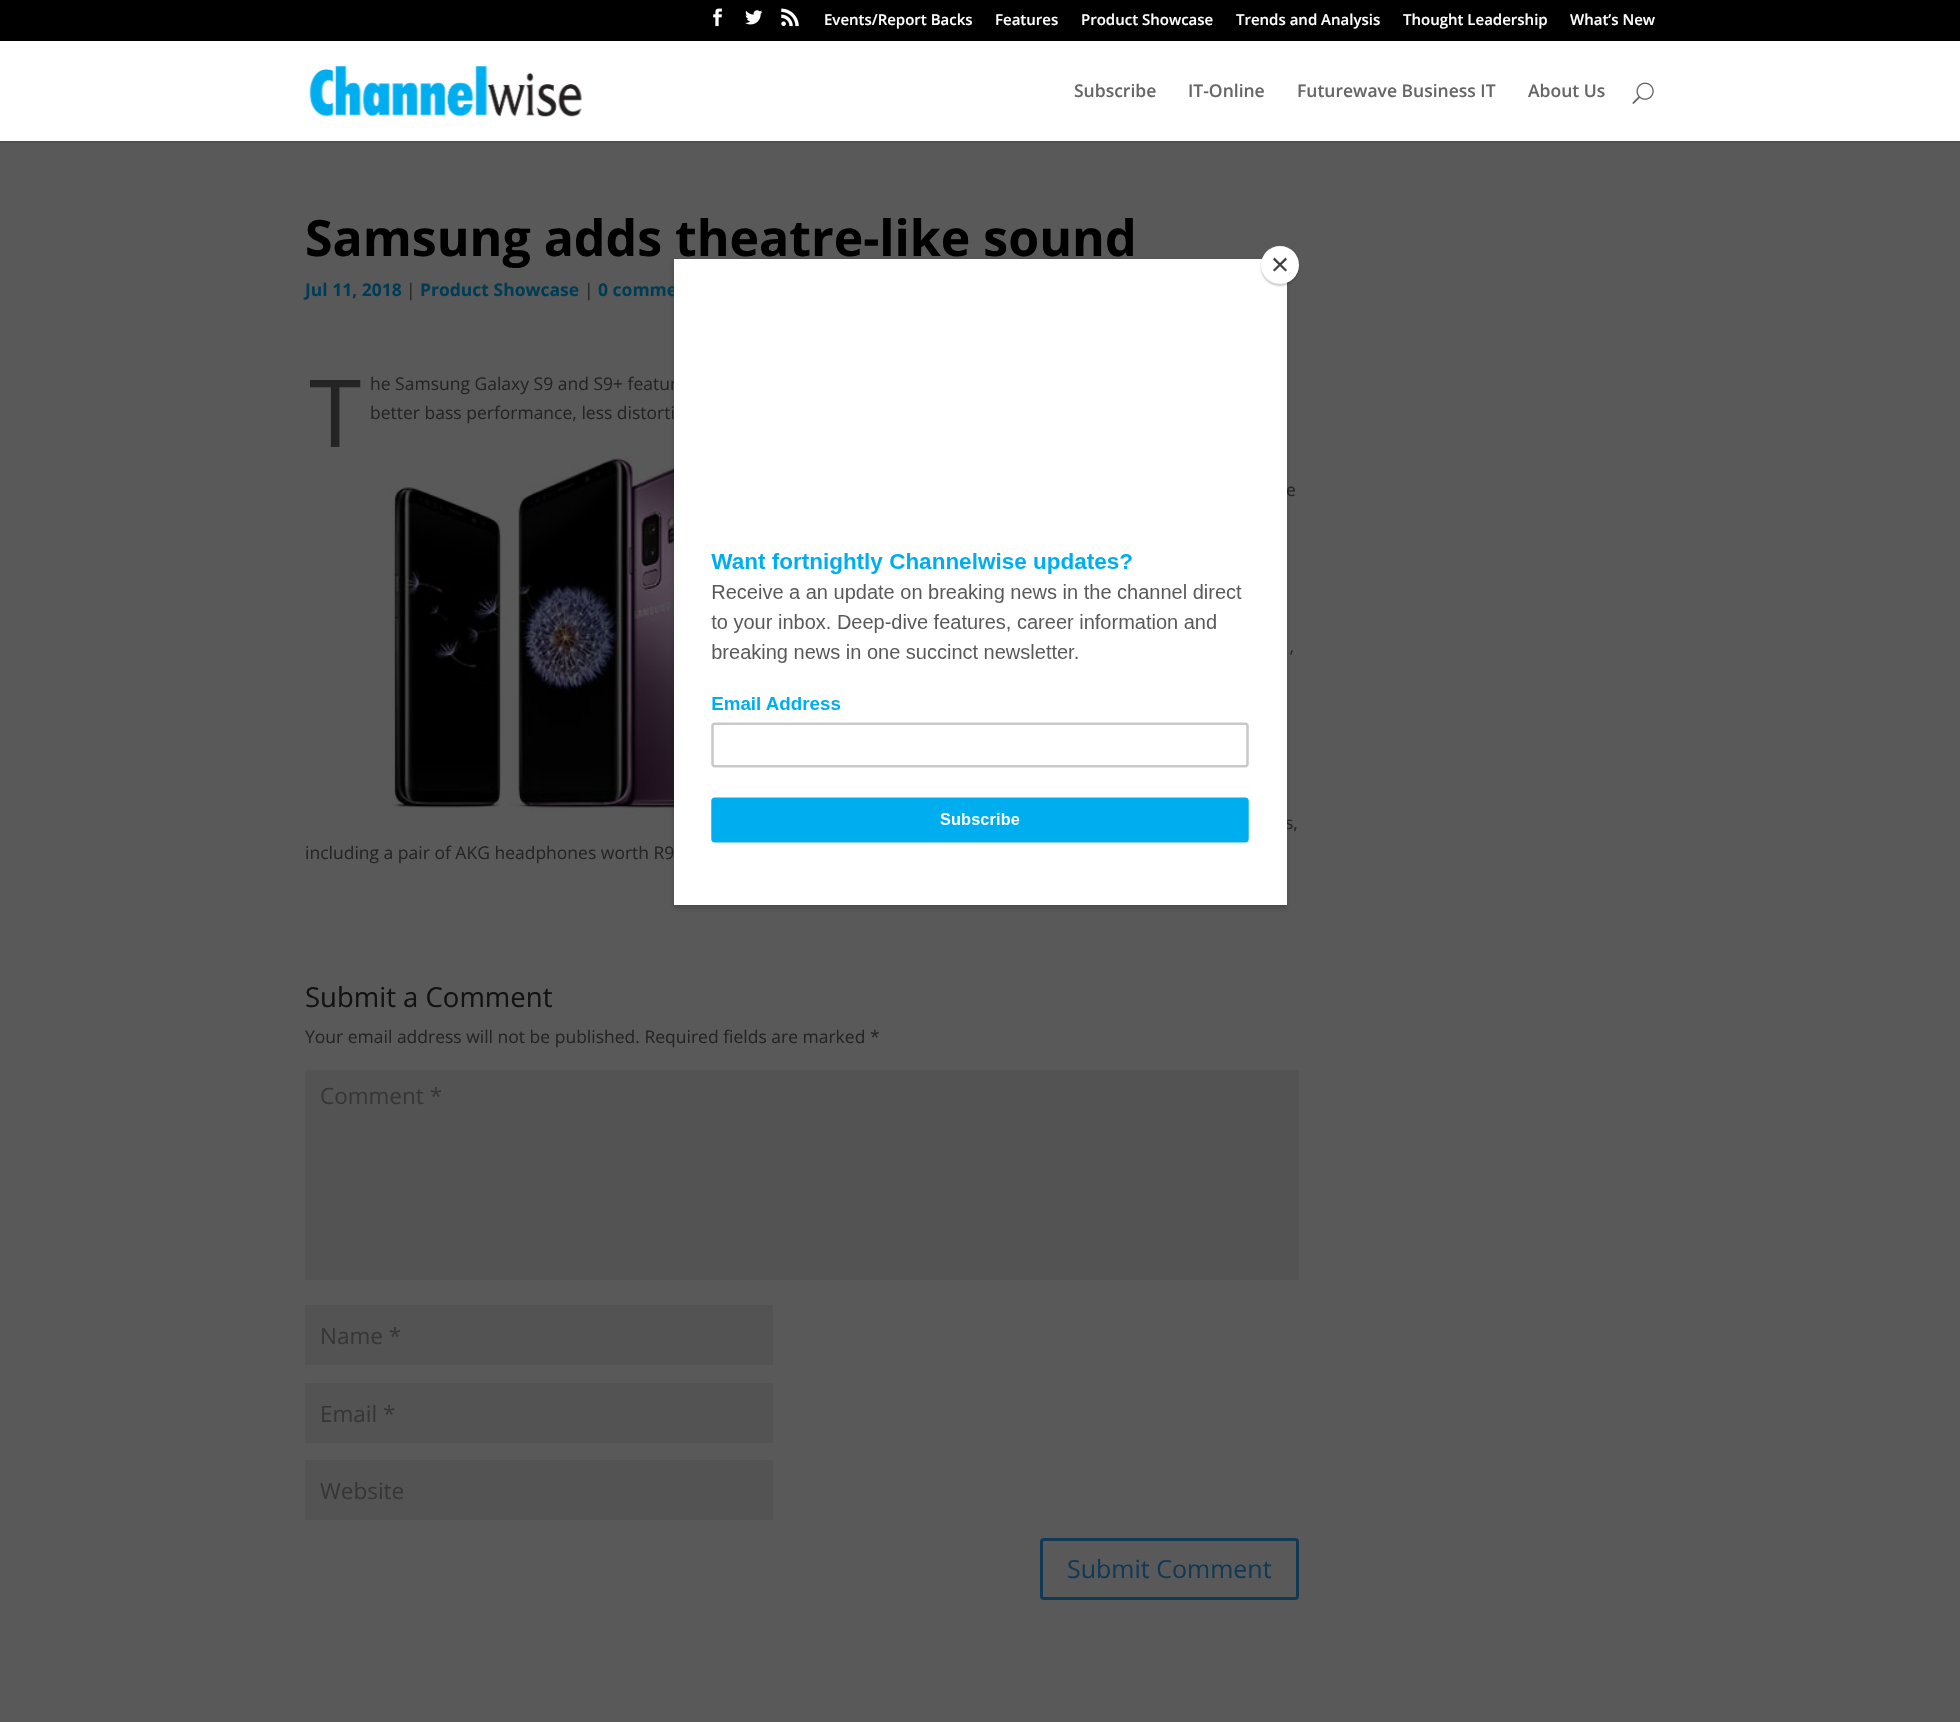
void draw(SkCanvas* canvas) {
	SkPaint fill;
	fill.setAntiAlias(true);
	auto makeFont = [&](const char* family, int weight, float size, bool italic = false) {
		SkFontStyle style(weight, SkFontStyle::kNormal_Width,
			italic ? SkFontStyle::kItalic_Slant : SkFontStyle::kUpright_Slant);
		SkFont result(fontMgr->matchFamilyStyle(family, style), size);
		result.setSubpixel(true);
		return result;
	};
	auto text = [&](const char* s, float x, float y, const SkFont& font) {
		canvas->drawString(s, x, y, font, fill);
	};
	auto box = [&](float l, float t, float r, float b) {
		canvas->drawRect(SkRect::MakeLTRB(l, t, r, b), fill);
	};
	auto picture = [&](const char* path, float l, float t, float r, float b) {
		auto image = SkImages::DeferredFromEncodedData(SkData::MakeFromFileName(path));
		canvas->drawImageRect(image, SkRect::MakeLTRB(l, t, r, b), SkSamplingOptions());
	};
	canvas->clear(0xFF595959);
	fill.setColor(0xFF000000);
	box(0, 0, 1960, 41);
	picture("image0.png", 713, 8, 722, 27);
	picture("image1.png", 745, 10, 763, 25);
	picture("image2.png", 781, 8, 799, 27);
	fill.setColor(0xFF505050);
	box(0, 141, 1960, 143);
	fill.setColor(0xFFFFFFFF);
	box(0, 41, 1960, 141);
	picture("image3.png", 309, 66, 582, 117);
	picture("image4.png", 1632, 82, 1654, 104);
	picture("image5.png", 390, 445, 674, 815);
	fill.setColor(0xFF535353);
	box(305, 1070, 1299, 1280);
	box(305, 1305, 773, 1365);
	box(305, 1383, 773, 1443);
	box(305, 1460, 773, 1520);
	fill.setStyle(SkPaint::kStroke_Style);
	fill.setStrokeWidth(3);
	fill.setColor(0xFF103955);
	canvas->drawRoundRect(SkRect::MakeLTRB(1041.5f, 1539.5f, 1297.5f, 1598.5f), 2.5f, 2.5f, fill);
	fill.setStyle(SkPaint::kFill_Style);
	fill.setColor(0x33000000);
	fill.setMaskFilter(SkMaskFilter::MakeBlur(kNormal_SkBlurStyle, 2.5f));
	canvas->drawRect(SkRect::MakeLTRB(674, 261, 1286, 908), fill);
	fill.setMaskFilter(nullptr);
	auto font1 = makeFont("Open Sans", 600, 15);
	fill.setColor(0xFFFFFFFF);
	text("Events/Report Backs", 824, 25, font1);
	text("Features", 995, 25, font1);
	text("Product Showcase", 1081, 25, font1);
	text("Trends and Analysis", 1236, 25, font1);
	text("Thought Leadership", 1403, 25, font1);
	text("What’s New", 1570, 25, font1);
	auto font2 = makeFont("Open Sans", 600, 17.5f);
	fill.setColor(0xFF666666);
	text("Subscribe", 1074, 97, font2);
	text("IT-Online", 1188, 97, font2);
	text("Futurewave Business IT", 1297, 97, font2);
	text("About Us", 1528, 97, font2);
	auto font3 = makeFont("Open Sans", 700, 50);
	fill.setColor(0xFF000000);
	text("Samsung adds theatre-like sound", 305, 256, font3);
	auto font4 = makeFont("Open Sans", 700, 17.5f);
	fill.setColor(0xFF003D54);
	text("Jul 11, 2018", 305, 296, font4);
	auto font5 = makeFont("Open Sans", 400, 17.5f);
	fill.setColor(0xFF242424);
	text("|", 406, 296, font5);
	fill.setColor(0xFF003D54);
	text("Product Showcase", 420, 296, font4);
	fill.setColor(0xFF242424);
	text("|", 584, 296, font5);
	fill.setColor(0xFF003D54);
	text("0 comme", 598, 296, font4);
	auto font6 = makeFont("Noto Sans", 400, 94);
	fill.setColor(0xFF242424);
	text("T", 309, 447, font6);
	text("he Samsung Galaxy S9 and S9+ featur", 370, 390, font5);
	text("better bass performance, less distorti", 370, 419, font5);
	text("e", 1286, 496, font5);
	text("’", 1290, 663, font5);
	text("s,", 1285, 829, font5);
	text("including a pair of AKG headphones worth R9", 305, 859, font5);
	auto font7 = makeFont("Open Sans", 400, 27.5f);
	fill.setColor(0xFF121212);
	text("Submit a Comment", 305, 1007, font7);
	fill.setColor(0xFF242424);
	text("Your email address will not be published. Required fields are marked *", 305, 1043, font5);
	auto font8 = makeFont("Open Sans", 400, 22.5f);
	fill.setColor(0xFF363636);
	text("Comment *", 320, 1104, font8);
	text("Name *", 320, 1344, font8);
	text("Email *", 320, 1422, font8);
	text("Website", 320, 1499, font8);
	auto font9 = makeFont("Open Sans", 400, 25);
	fill.setColor(0xFF103955);
	text("Submit Comment", 1067, 1578, font9);
	picture("image6.png", 674, 259, 1287, 905);
	fill.setColor(0x33000000);
	fill.setMaskFilter(SkMaskFilter::MakeBlur(kNormal_SkBlurStyle, 1));
	canvas->drawRoundRect(SkRect::MakeLTRB(1261, 249, 1299, 286), 18.5f, 18.5f, fill);
	fill.setMaskFilter(nullptr);
	fill.setColor(0xFFFFFFFF);
	canvas->drawCircle(1280, 265, 19, fill);
	fill.setColor(0xFF414141);
	canvas->drawPath(SkPathBuilder().moveTo(1285.5f, 257.5f).lineTo(1287, 259.5f).lineTo(1274.5f, 271.5f).lineTo(1273, 270).close().detach(), fill);
	canvas->drawPath(SkPathBuilder().moveTo(1273, 259.5f).lineTo(1274.5f, 257.5f).lineTo(1287, 270).lineTo(1285.5f, 271.5f).close().detach(), fill);
}
